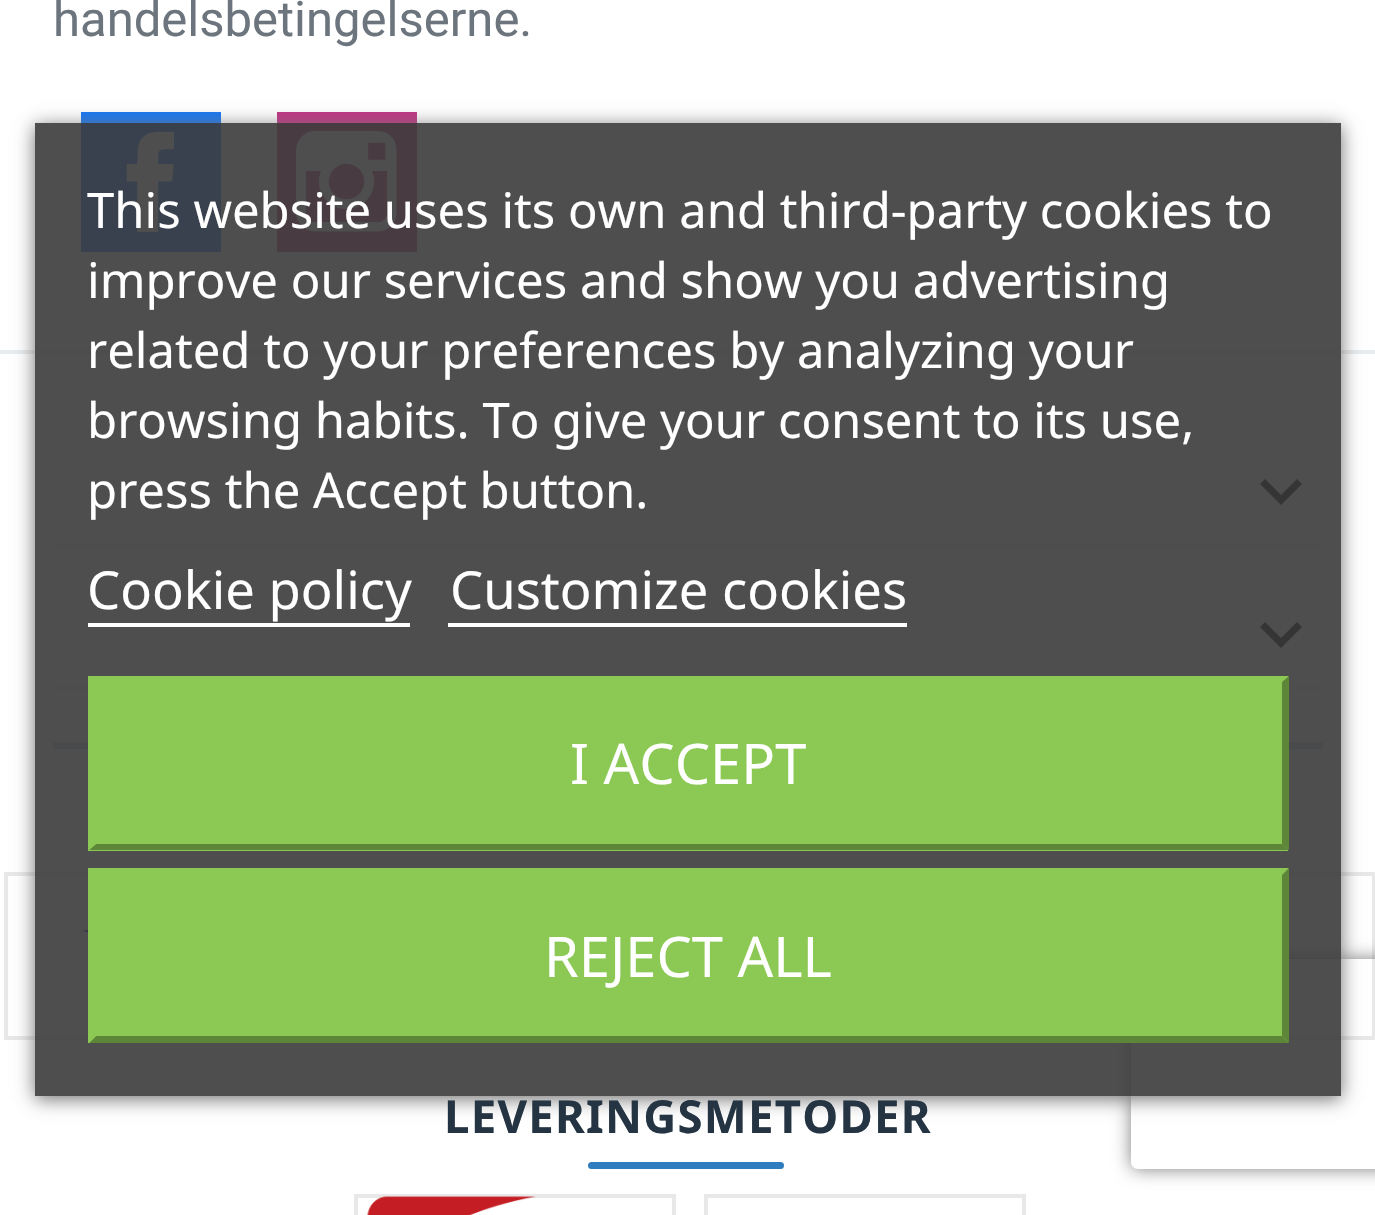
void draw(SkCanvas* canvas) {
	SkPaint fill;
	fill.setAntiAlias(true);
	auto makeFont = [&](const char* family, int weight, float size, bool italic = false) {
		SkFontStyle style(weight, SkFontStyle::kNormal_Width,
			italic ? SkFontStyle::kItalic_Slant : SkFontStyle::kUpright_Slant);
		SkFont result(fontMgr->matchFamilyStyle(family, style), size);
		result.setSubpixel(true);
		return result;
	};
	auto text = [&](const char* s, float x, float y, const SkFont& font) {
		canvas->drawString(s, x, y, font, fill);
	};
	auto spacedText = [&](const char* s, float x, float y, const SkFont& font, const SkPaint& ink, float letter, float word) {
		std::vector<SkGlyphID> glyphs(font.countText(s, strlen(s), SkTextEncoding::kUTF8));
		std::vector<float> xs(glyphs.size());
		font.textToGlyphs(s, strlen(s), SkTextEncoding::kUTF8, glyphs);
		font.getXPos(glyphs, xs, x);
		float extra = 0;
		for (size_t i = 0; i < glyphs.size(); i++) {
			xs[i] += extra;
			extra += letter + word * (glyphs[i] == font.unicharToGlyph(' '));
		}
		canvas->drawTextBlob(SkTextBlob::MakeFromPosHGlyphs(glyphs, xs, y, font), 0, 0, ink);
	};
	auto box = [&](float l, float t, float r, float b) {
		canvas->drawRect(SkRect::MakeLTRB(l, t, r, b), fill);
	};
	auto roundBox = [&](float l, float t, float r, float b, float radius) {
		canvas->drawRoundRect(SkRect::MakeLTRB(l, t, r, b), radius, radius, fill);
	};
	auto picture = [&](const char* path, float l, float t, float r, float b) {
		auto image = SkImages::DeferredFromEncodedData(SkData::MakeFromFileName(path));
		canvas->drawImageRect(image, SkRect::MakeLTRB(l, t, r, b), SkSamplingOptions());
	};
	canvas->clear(0xFFFFFFFF);
	fill.setColor(0xFF1877F2);
	box(81, 112, 221, 252);
	picture("image0.png", 126, 131, 174, 232);
	fill.setColor(0xFFC13584);
	box(277, 112, 417, 252);
	picture("image1.png", 296, 131, 397, 232);
	fill.setColor(0xFFE9ECEF);
	box(0, 350, 1375, 354);
	fill.setColor(0xFFF1F1F1);
	box(53, 543, 1323, 547);
	fill.setColor(0xFF000000);
	canvas->drawPath(SkPathBuilder().moveTo(1265, 479).lineTo(1281, 495).lineTo(1297, 479).lineTo(1302, 484).lineTo(1281, 505).lineTo(1260, 484).close().detach(), fill);
	fill.setColor(0xFFF1F1F1);
	box(53, 686, 1323, 690);
	fill.setColor(0xFF000000);
	canvas->drawPath(SkPathBuilder().moveTo(1265, 622).lineTo(1281, 638).lineTo(1297, 622).lineTo(1302, 627).lineTo(1281, 648).lineTo(1260, 627).close().detach(), fill);
	fill.setColor(0xFFC7D0D9);
	box(53, 742, 1323, 749);
	fill.setStyle(SkPaint::kStroke_Style);
	fill.setStrokeWidth(4);
	fill.setColor(0xFFE8E8E8);
	canvas->drawRect(SkRect::MakeLTRB(6, 874, 324, 1038), fill);
	picture("image2.png", 84, 930, 88, 933);
	canvas->drawRect(SkRect::MakeLTRB(1056, 874, 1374, 1038), fill);
	canvas->save();
	canvas->clipPath(SkPathBuilder(SkPathFillType::kEvenOdd).moveTo(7, 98).lineTo(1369, 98).lineTo(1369, 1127).lineTo(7, 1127).close().moveTo(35, 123).lineTo(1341, 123).lineTo(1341, 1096).lineTo(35, 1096).close().detach(), true);
	fill.setStyle(SkPaint::kFill_Style);
	fill.setColor(0xFF707070);
	fill.setMaskFilter(SkMaskFilter::MakeBlur(kNormal_SkBlurStyle, 9));
	canvas->drawRect(SkRect::MakeLTRB(35, 126, 1341, 1099), fill);
	fill.setMaskFilter(nullptr);
	canvas->restore();
	canvas->save();
	canvas->clipPath(SkPathBuilder(SkPathFillType::kEvenOdd).moveTo(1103, 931).lineTo(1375, 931).lineTo(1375, 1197).lineTo(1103, 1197).close().moveTo(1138, 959).lineTo(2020, 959).cubicTo(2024, 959, 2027, 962, 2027, 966).lineTo(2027, 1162).cubicTo(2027, 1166, 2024, 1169, 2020, 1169).lineTo(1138, 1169).cubicTo(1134, 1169, 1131, 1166, 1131, 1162).lineTo(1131, 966).cubicTo(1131, 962, 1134, 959, 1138, 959).close().detach(), true);
	fill.setColor(0xFF808080);
	fill.setMaskFilter(SkMaskFilter::MakeBlur(kNormal_SkBlurStyle, 9));
	canvas->drawRoundRect(SkRect::MakeLTRB(1131, 959, 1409, 1169), 7, 7, fill);
	fill.setMaskFilter(nullptr);
	canvas->restore();
	fill.setColor(0xE63B3B3B);
	box(35, 123, 1341, 1096);
	fill.setColor(0xFFFFFFFF);
	box(88, 623, 410, 627);
	box(448, 623, 907, 627);
	fill.setColor(0xFF8BC954);
	box(88, 676, 1288, 851);
	canvas->drawPath(SkPathBuilder().moveTo(89, 676).lineTo(1289, 676).lineTo(1282, 682).lineTo(96, 682).close().detach(), fill);
	fill.setColor(0xFF5D8638);
	canvas->drawPath(SkPathBuilder().moveTo(1289, 676).lineTo(1289, 850).lineTo(1282, 844).lineTo(1282, 682).close().detach(), fill);
	canvas->drawPath(SkPathBuilder().moveTo(1289, 850).lineTo(89, 850).lineTo(96, 844).lineTo(1282, 844).close().detach(), fill);
	fill.setColor(0xFF8BC954);
	canvas->drawPath(SkPathBuilder().moveTo(89, 850).lineTo(89, 676).lineTo(96, 682).lineTo(96, 844).close().detach(), fill);
	box(88, 868, 1288, 1043);
	canvas->drawPath(SkPathBuilder().moveTo(89, 868).lineTo(1289, 868).lineTo(1282, 875).lineTo(96, 875).close().detach(), fill);
	fill.setColor(0xFF5D8638);
	canvas->drawPath(SkPathBuilder().moveTo(1289, 868).lineTo(1289, 1043).lineTo(1282, 1036).lineTo(1282, 875).close().detach(), fill);
	canvas->drawPath(SkPathBuilder().moveTo(1289, 1043).lineTo(89, 1043).lineTo(96, 1036).lineTo(1282, 1036).close().detach(), fill);
	fill.setColor(0xFF8BC954);
	canvas->drawPath(SkPathBuilder().moveTo(89, 1043).lineTo(89, 868).lineTo(96, 875).lineTo(96, 1036).close().detach(), fill);
	fill.setColor(0xFF2F7DBF);
	roundBox(588, 1162, 784, 1169, 3.5f);
	fill.setStyle(SkPaint::kStroke_Style);
	fill.setColor(0xFFE8E8E8);
	canvas->drawRect(SkRect::MakeLTRB(356, 1196, 674, 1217), fill);
	picture("image3.png", 367, 1196, 536, 1215);
	canvas->drawRect(SkRect::MakeLTRB(706, 1196, 1024, 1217), fill);
	auto font1 = makeFont("Roboto", 400, 49);
	fill.setStyle(SkPaint::kFill_Style);
	fill.setColor(0xFF6C757D);
	text("handelsbetingelserne.", 53, 36, font1);
	auto font2 = makeFont("Noto Sans", 400, 49);
	fill.setColor(0xFFFFFFFF);
	text("This website uses its own and third-party cookies to", 87, 228, font2);
	text("improve our services and show you advertising", 87, 298, font2);
	text("related to your preferences by analyzing your", 87, 368, font2);
	text("browsing habits. To give your consent to its use,", 87, 438, font2);
	text("press the Accept button.", 87, 508, font2);
	auto font3 = makeFont("Noto Sans", 400, 52.5f);
	text("Cookie policy", 87, 609, font3);
	text("Customize cookies", 450, 609, font3);
	auto font4 = makeFont("Noto Sans", 400, 56);
	text("I ACCEPT", 570, 784, font4);
	text("REJECT ALL", 544, 977, font4);
	auto font5 = makeFont("Noto Sans", 700, 45.5f);
	fill.setColor(0xFF243442);
	spacedText("LEVERINGSMETODER", 444, 1133, font5, fill, 1.25f, 0);
}
